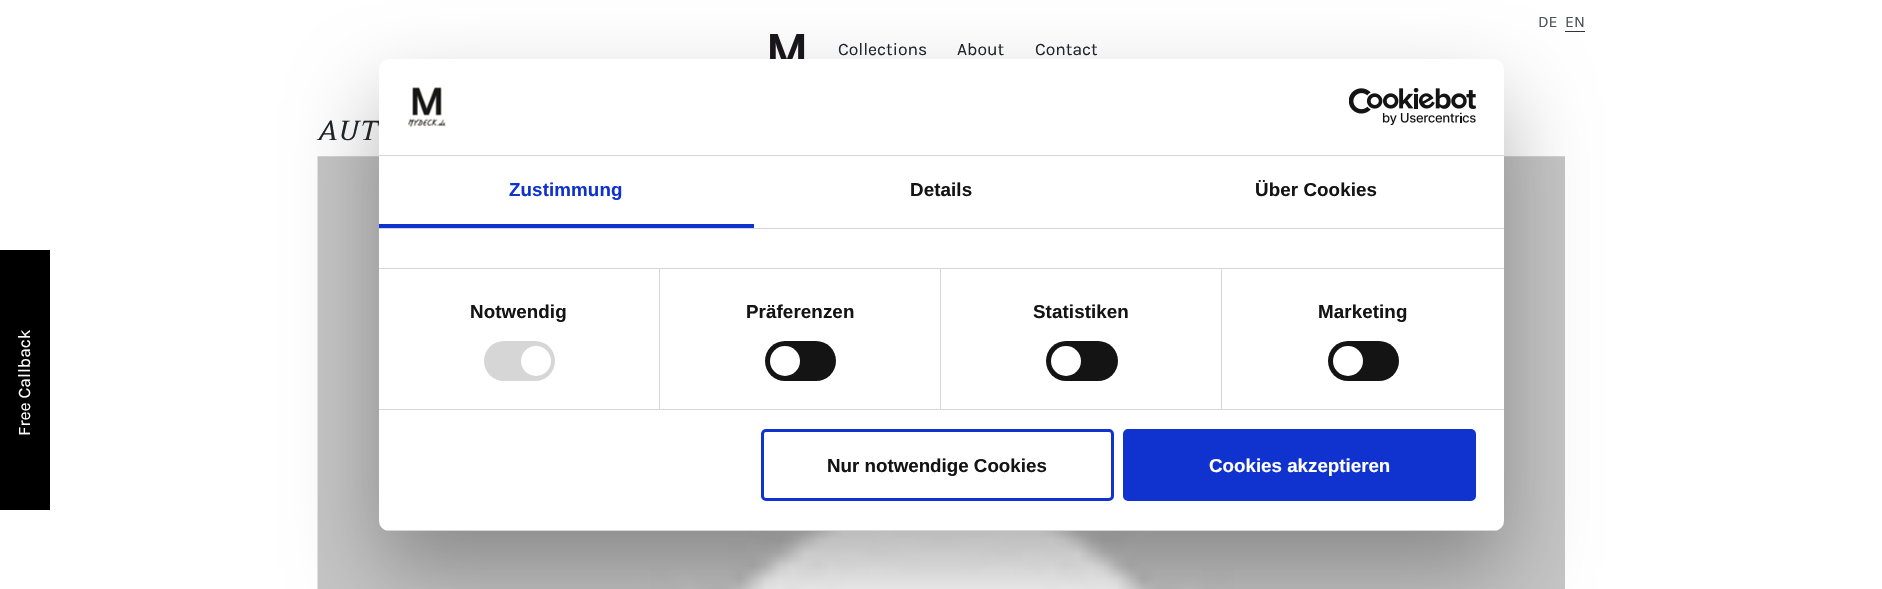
void draw(SkCanvas* canvas) {
	SkPaint fill;
	fill.setAntiAlias(true);
	auto makeFont = [&](const char* family, int weight, float size, bool italic = false) {
		SkFontStyle style(weight, SkFontStyle::kNormal_Width,
			italic ? SkFontStyle::kItalic_Slant : SkFontStyle::kUpright_Slant);
		SkFont result(fontMgr->matchFamilyStyle(family, style), size);
		result.setSubpixel(true);
		return result;
	};
	auto text = [&](const char* s, float x, float y, const SkFont& font) {
		canvas->drawString(s, x, y, font, fill);
	};
	auto spacedText = [&](const char* s, float x, float y, const SkFont& font, const SkPaint& ink, float letter, float word) {
		std::vector<SkGlyphID> glyphs(font.countText(s, strlen(s), SkTextEncoding::kUTF8));
		std::vector<float> xs(glyphs.size());
		font.textToGlyphs(s, strlen(s), SkTextEncoding::kUTF8, glyphs);
		font.getXPos(glyphs, xs, x);
		float extra = 0;
		for (size_t i = 0; i < glyphs.size(); i++) {
			xs[i] += extra;
			extra += letter + word * (glyphs[i] == font.unicharToGlyph(' '));
		}
		canvas->drawTextBlob(SkTextBlob::MakeFromPosHGlyphs(glyphs, xs, y, font), 0, 0, ink);
	};
	auto box = [&](float l, float t, float r, float b) {
		canvas->drawRect(SkRect::MakeLTRB(l, t, r, b), fill);
	};
	auto roundBox = [&](float l, float t, float r, float b, float radius) {
		canvas->drawRoundRect(SkRect::MakeLTRB(l, t, r, b), radius, radius, fill);
	};
	auto picture = [&](const char* path, float l, float t, float r, float b) {
		auto image = SkImages::DeferredFromEncodedData(SkData::MakeFromFileName(path));
		canvas->drawImageRect(image, SkRect::MakeLTRB(l, t, r, b), SkSamplingOptions());
	};
	canvas->clear(0xFFFFFFFF);
	fill.setColor(0xFF333333);
	box(1565, 31, 1585, 32);
	picture("image0.png", 770, 34, 805, 59);
	picture("image1.png", 317, 156, 1565, 589);
	fill.setColor(0xFF000000);
	box(0, 250, 50, 510);
	fill.setColor(0x4D000000);
	fill.setMaskFilter(SkMaskFilter::MakeBlur(kNormal_SkBlurStyle, 42.5f));
	canvas->drawRoundRect(SkRect::MakeLTRB(379, 99, 1504, 571), 10, 10, fill);
	fill.setMaskFilter(nullptr);
	auto font1 = makeFont("Karla", 400, 16);
	fill.setColor(0xFF4D5154);
	text("DE", 1538, 27, font1);
	text("EN", 1565, 27, font1);
	auto font2 = makeFont("Karla", 400, 17.5f);
	fill.setColor(0xFF212529);
	text("Collections", 838, 55, font2);
	text("About", 957, 55, font2);
	text("Contact", 1035, 55, font2);
	auto font3 = makeFont("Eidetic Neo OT", 400, 32, true);
	spacedText("AUT", 318, 140, font3, fill, 1, 0);
	fill.setColor(0xFFFFFFFF);
	canvas->save();
	canvas->rotate(-90, 30, 436);
	text("Free Callback", 30, 436, font2);
	canvas->restore();
	roundBox(379, 59, 1504, 531, 10);
	fill.setColor(0xFFD6D6D6);
	box(379, 155, 1504, 156);
	picture("image2.png", 408, 87, 446, 127);
	picture("image3.png", 1349, 88, 1476, 125);
	box(379, 228, 1504, 229);
	fill.setColor(0xFF1032CF);
	box(379, 224, 754, 228);
	auto font4 = makeFont("Liberation Sans", 700, 18.75f);
	spacedText("Zustimmung", 509, 196, font4, fill, 0.1f, 0);
	fill.setColor(0xFF141414);
	spacedText("Details", 910, 196, font4, fill, 0.1f, 0);
	spacedText("Über Cookies", 1255, 196, font4, fill, 0.1f, 0);
	fill.setColor(0xFFD6D6D6);
	box(379, 268, 1504, 269);
	box(379, 409, 1504, 410);
	box(659, 269, 660, 409);
	fill.setColor(0xFF141414);
	spacedText("Notwendig", 470, 318, font4, fill, 0.1f, 0);
	fill.setColor(0xFFD6D6D6);
	roundBox(484, 341, 555, 381, 20);
	fill.setColor(0xFFFFFFFF);
	canvas->drawCircle(536, 361, 15, fill);
	fill.setColor(0xFFD6D6D6);
	box(940, 269, 941, 409);
	fill.setColor(0xFF141414);
	spacedText("Präferenzen", 746, 318, font4, fill, 0.1f, 0);
	roundBox(765, 341, 836, 381, 20);
	fill.setColor(0xFFFFFFFF);
	canvas->drawCircle(785, 361, 15, fill);
	fill.setColor(0xFFD6D6D6);
	box(1221, 269, 1222, 409);
	fill.setColor(0xFF141414);
	spacedText("Statistiken", 1033, 318, font4, fill, 0.1f, 0);
	roundBox(1046, 341, 1118, 381, 20);
	fill.setColor(0xFFFFFFFF);
	canvas->drawCircle(1066, 361, 15, fill);
	fill.setColor(0xFF141414);
	spacedText("Marketing", 1318, 318, font4, fill, 0.1f, 0);
	roundBox(1328, 341, 1399, 381, 20);
	fill.setColor(0xFFFFFFFF);
	canvas->drawCircle(1348, 361, 15, fill);
	canvas->save();
	canvas->clipPath(SkPathBuilder().moveTo(389, 59).lineTo(1494, 59).cubicTo(1499.5f, 59, 1504, 63.5f, 1504, 69).lineTo(1504, 521).cubicTo(1504, 526.5f, 1499.5f, 531, 1494, 531).lineTo(389, 531).cubicTo(383.5f, 531, 379, 526.5f, 379, 521).lineTo(379, 69).cubicTo(379, 63.5f, 383.5f, 59, 389, 59).close().detach(), true);
	fill.setColor(0xFFD6D6D6);
	box(379, 530, 1504, 531);
	canvas->restore();
	fill.setStyle(SkPaint::kStroke_Style);
	fill.setStrokeWidth(3);
	fill.setColor(0xFF1032CF);
	canvas->drawRoundRect(SkRect::MakeLTRB(762.5f, 430.5f, 1112.5f, 499.5f), 3.5f, 3.5f, fill);
	fill.setStyle(SkPaint::kFill_Style);
	fill.setColor(0xFF141414);
	text("Nur notwendige Cookies", 827, 472, font4);
	fill.setColor(0xFF1032CF);
	canvas->drawRoundRect(SkRect::MakeLTRB(1124.5f, 430.5f, 1474.5f, 499.5f), 3.5f, 3.5f, fill);
	fill.setStyle(SkPaint::kStroke_Style);
	canvas->drawRoundRect(SkRect::MakeLTRB(1124.5f, 430.5f, 1474.5f, 499.5f), 3.5f, 3.5f, fill);
	fill.setStyle(SkPaint::kFill_Style);
	fill.setColor(0xFFFFFFFF);
	text("Cookies akzeptieren", 1209, 472, font4);
}
